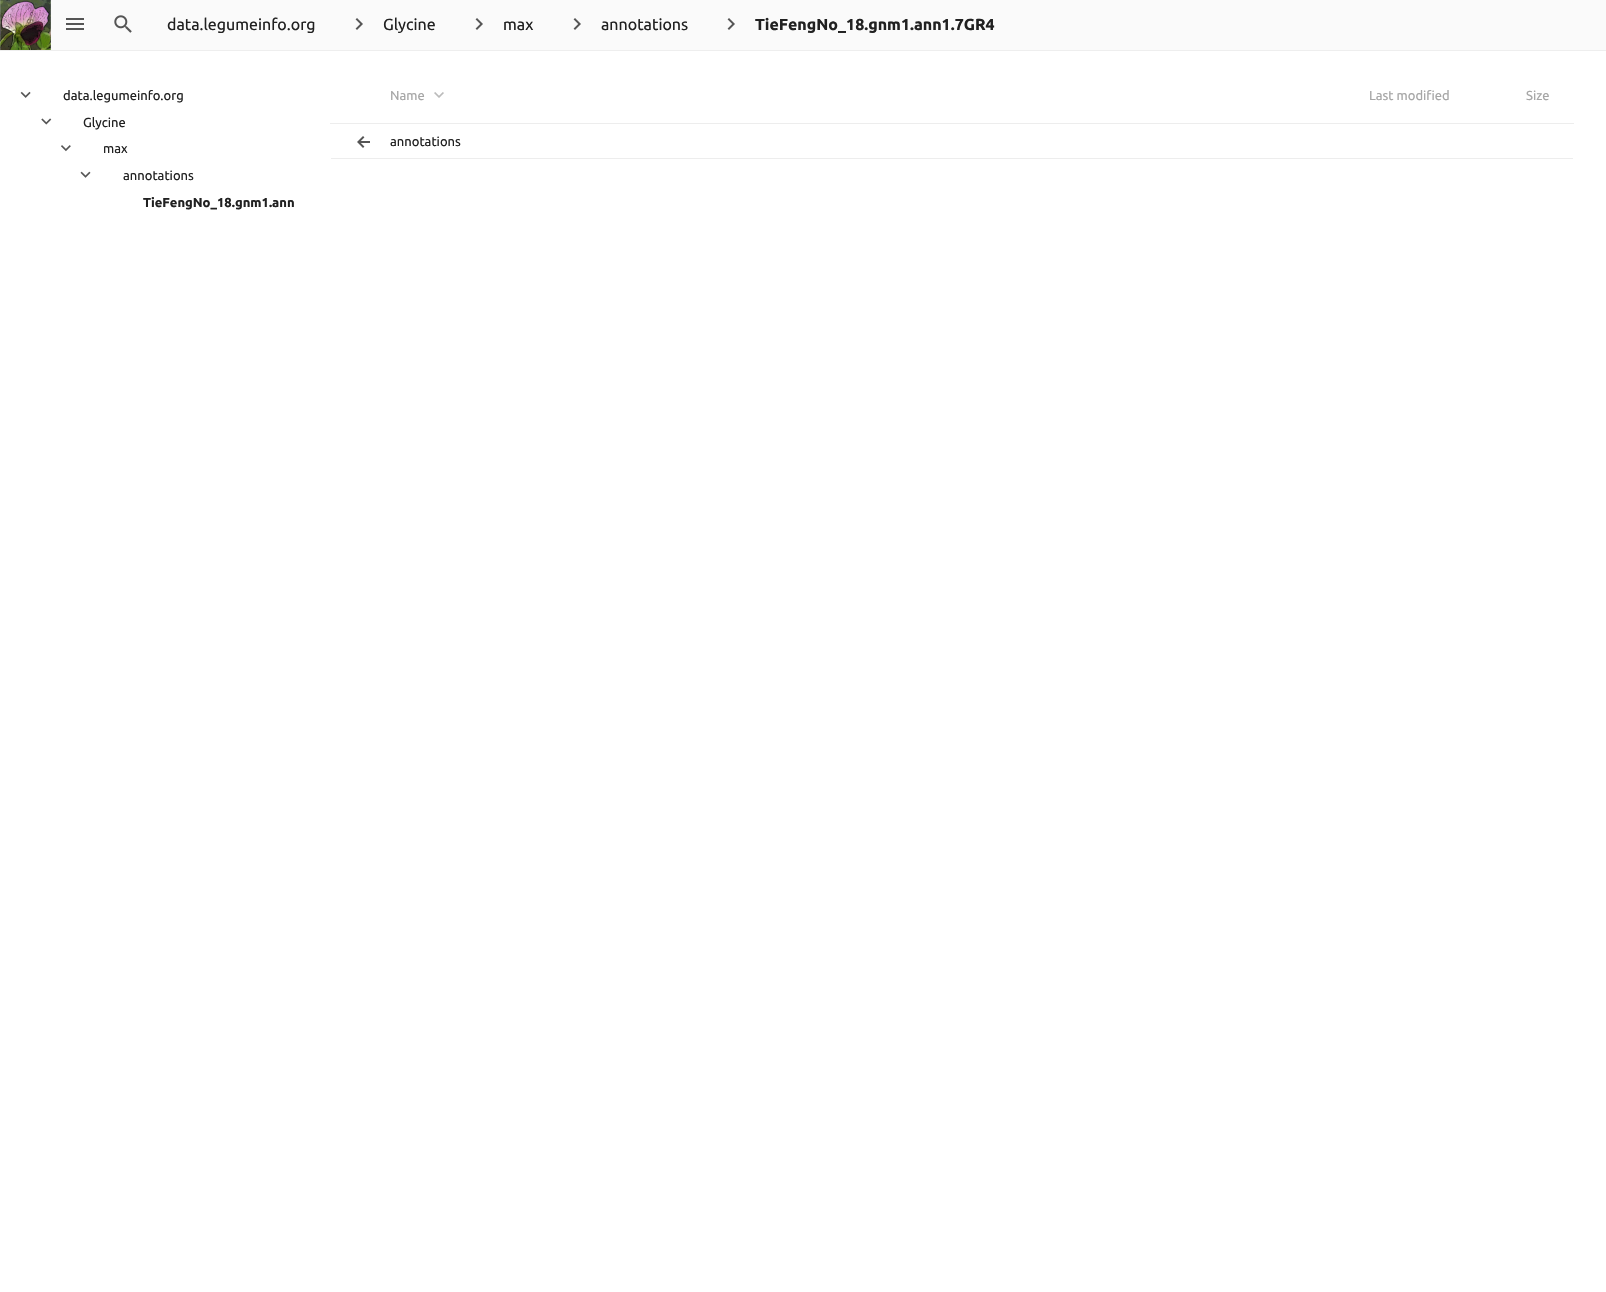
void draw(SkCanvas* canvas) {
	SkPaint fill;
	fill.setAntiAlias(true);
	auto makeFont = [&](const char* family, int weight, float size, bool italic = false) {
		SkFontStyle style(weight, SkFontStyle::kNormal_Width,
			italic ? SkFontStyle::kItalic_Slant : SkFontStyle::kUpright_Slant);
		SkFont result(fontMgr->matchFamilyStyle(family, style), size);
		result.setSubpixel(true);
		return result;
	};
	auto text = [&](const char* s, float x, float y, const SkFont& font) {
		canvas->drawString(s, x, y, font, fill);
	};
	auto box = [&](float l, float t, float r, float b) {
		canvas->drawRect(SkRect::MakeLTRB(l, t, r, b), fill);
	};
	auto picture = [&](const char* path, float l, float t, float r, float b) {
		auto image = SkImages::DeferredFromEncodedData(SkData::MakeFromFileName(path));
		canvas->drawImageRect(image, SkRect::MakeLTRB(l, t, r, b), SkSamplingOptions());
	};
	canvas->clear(0xFFFFFFFF);
	fill.setColor(0xFFFAFAFA);
	box(51, 0, 1606, 50);
	fill.setColor(0xFFEEEEEE);
	box(0, 50, 1606, 51);
	picture("image0.png", 0, 0, 51, 50);
	picture("image1.png", 66, 18, 84, 30);
	picture("image2.png", 114, 15, 132, 33);
	picture("image3.png", 355, 18, 363, 30);
	picture("image3.png", 475, 18, 483, 30);
	picture("image3.png", 573, 18, 581, 30);
	picture("image3.png", 727, 18, 735, 30);
	picture("image4.png", 20, 91, 31, 98);
	picture("image5.png", 41, 118, 52, 125);
	picture("image6.png", 61, 145, 71, 152);
	picture("image7.png", 80, 171, 91, 178);
	fill.setColor(0xFFEDEDED);
	box(330, 123, 1574, 124);
	picture("image8.png", 434, 92, 444, 98);
	box(331, 158, 1573, 159);
	picture("image9.png", 357, 136, 370, 148);
	auto font1 = makeFont("Ubuntu", 400, 16);
	fill.setColor(0xFF212121);
	text("data.legumeinfo.org", 167, 30, font1);
	text("Glycine", 383, 30, font1);
	text("max", 503, 30, font1);
	text("annotations", 601, 30, font1);
	auto font2 = makeFont("Ubuntu", 700, 16);
	text("TieFengNo_18.gnm1.ann1.7GR4", 755, 30, font2);
	auto font3 = makeFont("Ubuntu", 400, 13);
	text("data.legumeinfo.org", 63, 100, font3);
	text("Glycine", 83, 127, font3);
	text("max", 103, 153, font3);
	text("annotations", 123, 180, font3);
	auto font4 = makeFont("Ubuntu", 700, 13);
	text("TieFengNo_18.gnm1.ann", 143, 207, font4);
	fill.setColor(0xFFA6A6A6);
	text("Name", 390, 100, font3);
	text("Last modified", 1369, 100, font3);
	text("Size", 1526, 100, font3);
	fill.setColor(0xFF212121);
	text("annotations", 390, 146, font3);
}
